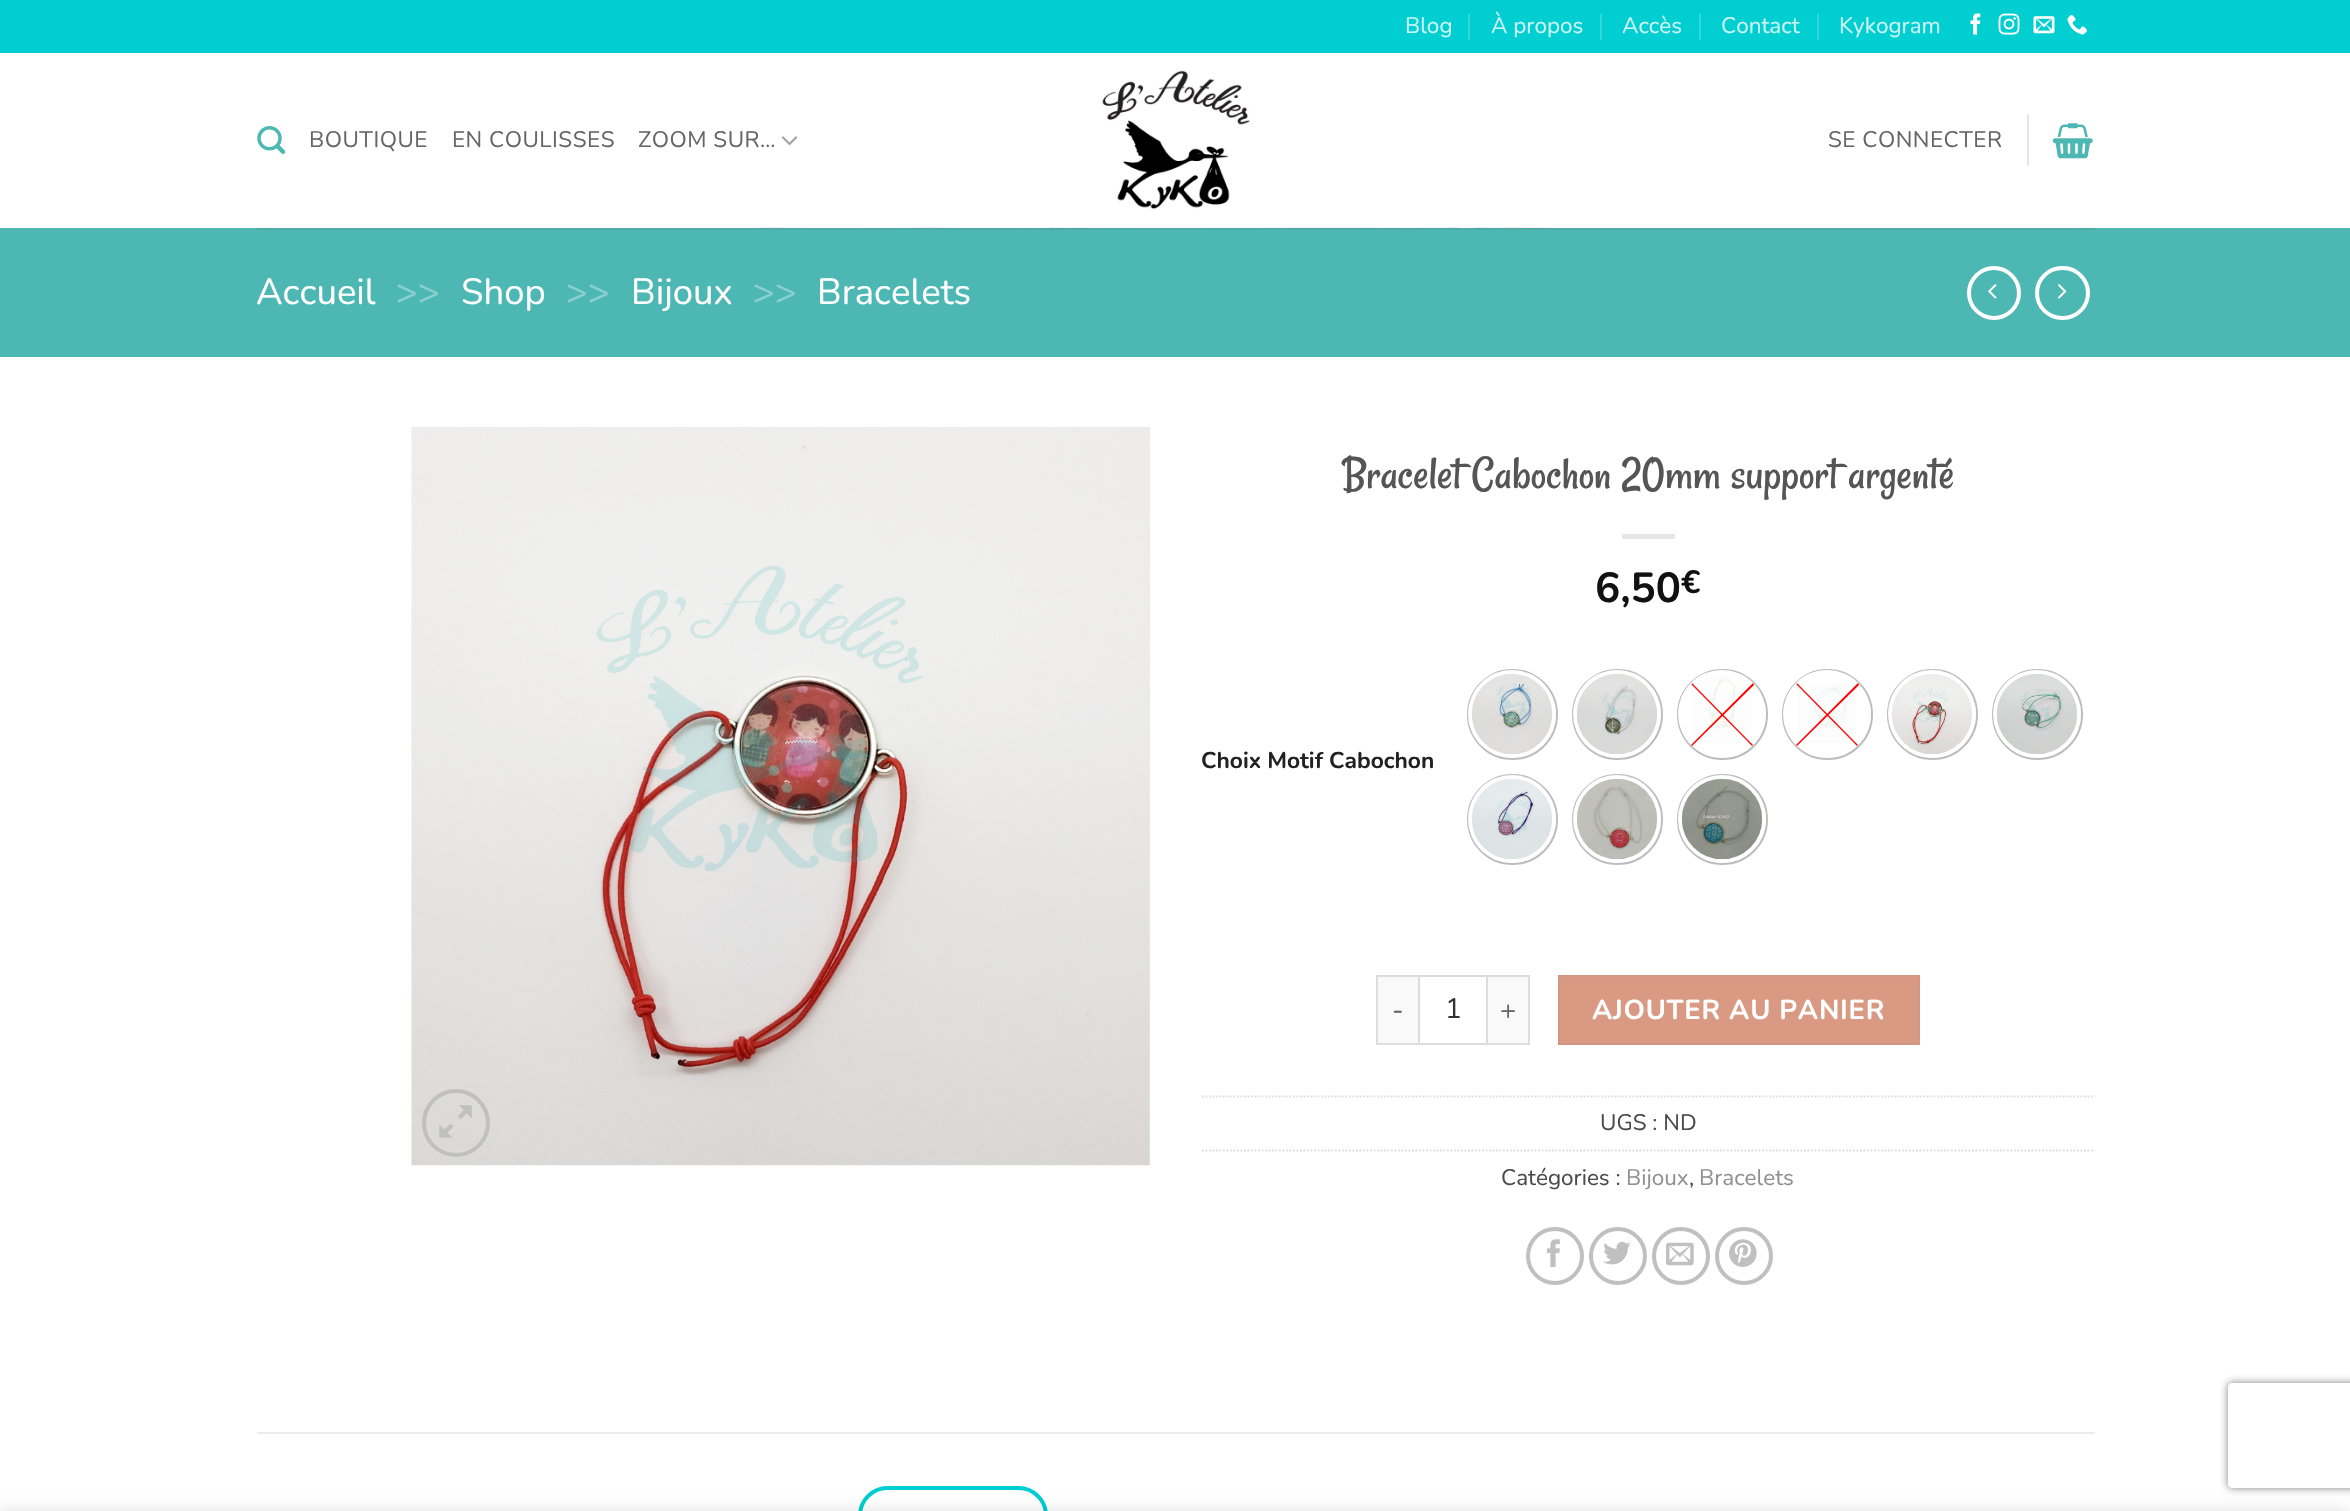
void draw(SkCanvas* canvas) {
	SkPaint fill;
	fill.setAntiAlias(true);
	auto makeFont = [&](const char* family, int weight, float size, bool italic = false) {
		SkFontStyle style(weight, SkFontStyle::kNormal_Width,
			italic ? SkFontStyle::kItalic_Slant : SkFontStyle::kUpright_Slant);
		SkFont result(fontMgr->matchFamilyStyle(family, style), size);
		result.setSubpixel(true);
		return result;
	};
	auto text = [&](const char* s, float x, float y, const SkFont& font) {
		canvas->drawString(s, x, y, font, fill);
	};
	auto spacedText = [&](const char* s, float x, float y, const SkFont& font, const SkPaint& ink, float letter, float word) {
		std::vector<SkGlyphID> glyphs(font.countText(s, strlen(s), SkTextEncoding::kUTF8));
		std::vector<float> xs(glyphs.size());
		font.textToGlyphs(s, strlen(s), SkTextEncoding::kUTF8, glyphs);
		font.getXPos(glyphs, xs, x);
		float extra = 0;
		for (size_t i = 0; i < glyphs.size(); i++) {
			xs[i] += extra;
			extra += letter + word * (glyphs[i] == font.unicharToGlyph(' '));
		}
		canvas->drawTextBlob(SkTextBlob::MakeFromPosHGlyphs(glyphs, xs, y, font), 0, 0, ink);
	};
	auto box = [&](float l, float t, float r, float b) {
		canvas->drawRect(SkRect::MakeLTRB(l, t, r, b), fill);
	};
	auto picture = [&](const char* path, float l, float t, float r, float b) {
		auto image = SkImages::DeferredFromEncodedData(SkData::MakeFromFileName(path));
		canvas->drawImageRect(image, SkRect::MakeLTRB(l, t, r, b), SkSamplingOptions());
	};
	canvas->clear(0xFFFFFFFF);
	fill.setColor(0xFF00CED1);
	box(0, 0, 2350, 53);
	fill.setColor(0xFF33D8DA);
	box(1468, 14, 1470, 40);
	box(1600, 14, 1602, 40);
	box(1699, 14, 1701, 40);
	box(1817, 14, 1819, 40);
	picture("image0.png", 1970, 13, 1981, 35);
	picture("image1.png", 1998, 13, 2020, 35);
	picture("image2.png", 2033, 16, 2055, 34);
	picture("image3.png", 2067, 14, 2088, 35);
	picture("image4.png", 257, 126, 286, 154);
	picture("image5.png", 781, 136, 798, 146);
	picture("image8.png", 0, 227, 2350, 228);
	fill.setColor(0xE6FFFFFF);
	box(0, 227, 2350, 228);
	picture("image6.png", 1088, 70, 1263, 228);
	fill.setColor(0xFFE6E6E6);
	box(2027, 114, 2029, 166);
	picture("image7.png", 2052, 123, 2093, 159);
	fill.setColor(0xFF4DB7B3);
	box(0, 228, 2350, 357);
	fill.setColor(0xFF4DACA8);
	box(257, 228, 2095, 230);
	fill.setStyle(SkPaint::kStroke_Style);
	fill.setStrokeWidth(4);
	fill.setColor(0xFFFFFFFF);
	canvas->drawCircle(1994, 293, 25, fill);
	picture("image9.png", 1988, 284, 1997, 299);
	canvas->drawRoundRect(SkRect::MakeLTRB(2037, 268, 2088, 318), 25, 25, fill);
	picture("image10.png", 2058, 284, 2067, 299);
	picture("image11.png", 411, 427, 1150, 1166);
	picture("image12.png", 1149, 427, 1150, 1165);
	fill.setColor(0xFFC0C0C0);
	canvas->drawCircle(456, 1123, 32, fill);
	picture("image13.png", 439, 1105, 472, 1138);
	fill.setStyle(SkPaint::kFill_Style);
	fill.setColor(0xFFE6E6E6);
	box(1622, 534, 1675, 539);
	fill.setStyle(SkPaint::kStroke_Style);
	fill.setStrokeWidth(2);
	fill.setColor(0xFFBDBDBD);
	canvas->drawCircle(1512.5f, 714.5f, 44.5f, fill);
	fill.setStyle(SkPaint::kFill_Style);
	fill.setColor(0xFFFFFFFF);
	canvas->drawCircle(1512, 714, 44, fill);
	picture("image14.png", 1472, 674, 1552, 754);
	fill.setStyle(SkPaint::kStroke_Style);
	fill.setColor(0xFFBDBDBD);
	canvas->drawCircle(1617.5f, 714.5f, 44.5f, fill);
	fill.setStyle(SkPaint::kFill_Style);
	fill.setColor(0xFFFFFFFF);
	canvas->drawCircle(1617, 714, 44, fill);
	picture("image15.png", 1577, 674, 1657, 754);
	fill.setStyle(SkPaint::kStroke_Style);
	fill.setColor(0xFFBDBDBD);
	canvas->drawCircle(1722.5f, 714.5f, 44.5f, fill);
	fill.setStyle(SkPaint::kFill_Style);
	fill.setColor(0xFFFFFFFF);
	canvas->drawCircle(1722, 714, 44, fill);
	fill.setColor(0xFFFF0000);
	canvas->drawPath(SkPathBuilder().moveTo(1693, 684).lineTo(1753, 745).lineTo(1752, 746).lineTo(1692, 685).cubicTo(1691, 684, 1692, 683, 1693, 684).close().detach(), fill);
	picture("image16.png", 1693, 676, 1751, 743);
	canvas->drawPath(SkPathBuilder().moveTo(1691, 745).lineTo(1753, 683).lineTo(1754, 685).lineTo(1692, 746).close().detach(), fill);
	fill.setStyle(SkPaint::kStroke_Style);
	fill.setColor(0xFFBDBDBD);
	canvas->drawCircle(1827.5f, 714.5f, 44.5f, fill);
	fill.setStyle(SkPaint::kFill_Style);
	fill.setColor(0xFFFFFFFF);
	canvas->drawCircle(1827, 714, 44, fill);
	fill.setColor(0xFFFF0000);
	canvas->drawPath(SkPathBuilder().moveTo(1798, 684).lineTo(1858, 745).lineTo(1857, 746).lineTo(1797, 685).cubicTo(1796, 684, 1797, 683, 1798, 684).close().detach(), fill);
	picture("image17.png", 1798, 684, 1856, 743);
	canvas->drawPath(SkPathBuilder().moveTo(1796, 745).lineTo(1858, 683).lineTo(1859, 685).lineTo(1797, 746).close().detach(), fill);
	fill.setStyle(SkPaint::kStroke_Style);
	fill.setColor(0xFFBDBDBD);
	canvas->drawCircle(1932.5f, 714.5f, 44.5f, fill);
	fill.setStyle(SkPaint::kFill_Style);
	fill.setColor(0xFFFFFFFF);
	canvas->drawCircle(1932, 714, 44, fill);
	picture("image18.png", 1892, 674, 1972, 754);
	fill.setStyle(SkPaint::kStroke_Style);
	fill.setColor(0xFFBDBDBD);
	canvas->drawCircle(2037.5f, 714.5f, 44.5f, fill);
	fill.setStyle(SkPaint::kFill_Style);
	fill.setColor(0xFFFFFFFF);
	canvas->drawCircle(2037, 714, 44, fill);
	picture("image19.png", 1997, 674, 2077, 754);
	fill.setStyle(SkPaint::kStroke_Style);
	fill.setColor(0xFFBDBDBD);
	canvas->drawCircle(1512.5f, 819.5f, 44.5f, fill);
	fill.setStyle(SkPaint::kFill_Style);
	fill.setColor(0xFFFFFFFF);
	canvas->drawCircle(1512, 819, 44, fill);
	picture("image20.png", 1472, 779, 1552, 859);
	fill.setStyle(SkPaint::kStroke_Style);
	fill.setColor(0xFFBDBDBD);
	canvas->drawCircle(1617.5f, 819.5f, 44.5f, fill);
	fill.setStyle(SkPaint::kFill_Style);
	fill.setColor(0xFFFFFFFF);
	canvas->drawCircle(1617, 819, 44, fill);
	picture("image21.png", 1577, 779, 1657, 859);
	fill.setStyle(SkPaint::kStroke_Style);
	fill.setColor(0xFFBDBDBD);
	canvas->drawCircle(1722.5f, 819.5f, 44.5f, fill);
	fill.setStyle(SkPaint::kFill_Style);
	fill.setColor(0xFFFFFFFF);
	canvas->drawCircle(1722, 819, 44, fill);
	picture("image22.png", 1681, 778, 1763, 860);
	fill.setColor(0xFFF9F9F9);
	box(1378, 977, 1418, 1043);
	fill.setColor(0xFFDDDDDD);
	box(1376, 975, 1418, 977);
	box(1376, 1043, 1418, 1045);
	box(1376, 975, 1378, 1045);
	fill.setStyle(SkPaint::kStroke_Style);
	canvas->drawRect(SkRect::MakeLTRB(1419, 976, 1487, 1044), fill);
	fill.setStyle(SkPaint::kFill_Style);
	fill.setColor(0xFFF9F9F9);
	box(1488, 977, 1528, 1043);
	fill.setColor(0xFFDDDDDD);
	box(1488, 975, 1530, 977);
	box(1528, 975, 1530, 1045);
	box(1488, 1043, 1530, 1045);
	fill.setColor(0xFFD99983);
	canvas->drawRect(SkRect::MakeLTRB(1559, 976, 1919, 1044), fill);
	fill.setStyle(SkPaint::kStroke_Style);
	fill.setColor(0xFFD39682);
	canvas->drawRect(SkRect::MakeLTRB(1559, 976, 1919, 1044), fill);
	fill.setStrokeWidth(1.8f);
	fill.setColor(0xFFDDDDDD);
	fill.setPathEffect(SkDashPathEffect::Make({{1.75f, 1.75f}}, 0));
	canvas->drawPath(SkPathBuilder().moveTo(1202, 1096.5f).lineTo(2095, 1096.5f).detach(), fill);
	fill.setPathEffect(nullptr);
	fill.setPathEffect(SkDashPathEffect::Make({{1.75f, 1.75f}}, 0));
	canvas->drawPath(SkPathBuilder().moveTo(1202, 1150.5f).lineTo(2095, 1150.5f).detach(), fill);
	fill.setPathEffect(nullptr);
	fill.setStrokeWidth(4);
	fill.setColor(0xFFC0C0C0);
	canvas->drawCircle(1555, 1256, 27, fill);
	picture("image23.png", 1546, 1239, 1560, 1267);
	canvas->drawCircle(1618, 1256, 27, fill);
	picture("image24.png", 1603, 1241, 1631, 1265);
	canvas->drawCircle(1681, 1256, 27, fill);
	picture("image25.png", 1666, 1242, 1694, 1266);
	canvas->drawCircle(1744, 1256, 27, fill);
	picture("image26.png", 1729, 1239, 1757, 1267);
	fill.setStyle(SkPaint::kFill_Style);
	fill.setColor(0xFFECECEC);
	box(257, 1432, 2095, 1434);
	fill.setStyle(SkPaint::kStroke_Style);
	fill.setColor(0xFF00CED1);
	canvas->drawRoundRect(SkRect::MakeLTRB(860, 1488, 1046, 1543), 27.5f, 27.5f, fill);
	canvas->save();
	canvas->clipPath(SkPathBuilder(SkPathFillType::kEvenOdd).moveTo(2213, 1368).lineTo(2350, 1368).lineTo(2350, 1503).lineTo(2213, 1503).close().moveTo(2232, 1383).lineTo(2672, 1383).cubicTo(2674, 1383, 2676, 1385, 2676, 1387).lineTo(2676, 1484).cubicTo(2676, 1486, 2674, 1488, 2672, 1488).lineTo(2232, 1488).cubicTo(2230, 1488, 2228, 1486, 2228, 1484).lineTo(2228, 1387).cubicTo(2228, 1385, 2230, 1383, 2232, 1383).close().detach(), true);
	fill.setStyle(SkPaint::kFill_Style);
	fill.setColor(0xFF808080);
	fill.setMaskFilter(SkMaskFilter::MakeBlur(kNormal_SkBlurStyle, 4.5f));
	canvas->drawRoundRect(SkRect::MakeLTRB(2228, 1383, 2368, 1488), 4, 4, fill);
	fill.setMaskFilter(nullptr);
	canvas->restore();
	fill.setColor(0x24000000);
	fill.setMaskFilter(SkMaskFilter::MakeBlur(kNormal_SkBlurStyle, 8));
	canvas->drawRect(SkRect::MakeLTRB(0, 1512, 2350, 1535), fill);
	fill.setMaskFilter(nullptr);
	auto font1 = makeFont("Nunito", 200, 22.5f);
	fill.setColor(0xFFCCF5F6);
	text("Blog", 1405, 33, font1);
	text("À propos", 1491, 33, font1);
	text("Accès", 1622, 33, font1);
	text("Contact", 1721, 33, font1);
	text("Kykogram", 1839, 33, font1);
	fill.setColor(0xFF666666);
	spacedText("BOUTIQUE", 309, 147, font1, fill, 0.5f, 0);
	spacedText("EN COULISSES", 452, 147, font1, fill, 0.5f, 0);
	spacedText("ZOOM SUR…", 638, 147, font1, fill, 0.5f, 0);
	spacedText("SE CONNECTER", 1828, 147, font1, fill, 0.5f, 0);
	auto font2 = makeFont("Nunito", 200, 36.5f);
	fill.setColor(0xFFFFFFFF);
	text("Accueil", 256, 304, font2);
	fill.setColor(0xFF8BD0CE);
	text(">>", 396, 304, font2);
	fill.setColor(0xFFFFFFFF);
	text("Shop", 461, 304, font2);
	fill.setColor(0xFF8BD0CE);
	text(">>", 566, 304, font2);
	fill.setColor(0xFFFFFFFF);
	text("Bijoux", 631, 304, font2);
	fill.setColor(0xFF8BD0CE);
	text(">>", 753, 304, font2);
	fill.setColor(0xFFFFFFFF);
	text("Bracelets", 817, 304, font2);
	auto font3 = makeFont("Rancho", 400, 47.6f);
	fill.setColor(0xFF555555);
	text("Bracelet Cabochon 20mm support argenté", 1342, 488, font3);
	auto font4 = makeFont("Nunito", 700, 42);
	fill.setColor(0xFF111111);
	text("6,50", 1595, 602, font4);
	auto font5 = makeFont("Nunito", 700, 32);
	text("€", 1681, 593, font5);
	auto font6 = makeFont("Nunito", 700, 22.75f);
	fill.setColor(0xFF222222);
	text("Choix Motif Cabochon", 1201, 768, font6);
	auto font7 = makeFont("Nunito", 200, 27.25f);
	fill.setColor(0xFF666666);
	spacedText("-", 1392, 1019, font7, fill, 0.8f, 0);
	auto font8 = makeFont("Nunito", 200, 28);
	fill.setColor(0xFF333333);
	text("1", 1445, 1018, font8);
	fill.setColor(0xFF666666);
	spacedText("+", 1500, 1019, font7, fill, 0.8f, 0);
	auto font9 = makeFont("Nunito", 700, 27.25f);
	fill.setColor(0xFFFFFFFF);
	spacedText("AJOUTER AU PANIER", 1592, 1019, font9, fill, 0.8f, 0);
	fill.setColor(0xFF4A4A4A);
	text("UGS : ND", 1600, 1130, font1);
	text("Catégories :", 1501, 1185, font1);
	fill.setColor(0xFF919191);
	text("Bijoux", 1626, 1185, font1);
	fill.setColor(0xFF4A4A4A);
	text(",", 1689, 1185, font1);
	fill.setColor(0xFF919191);
	text("Bracelets", 1699, 1185, font1);
}
